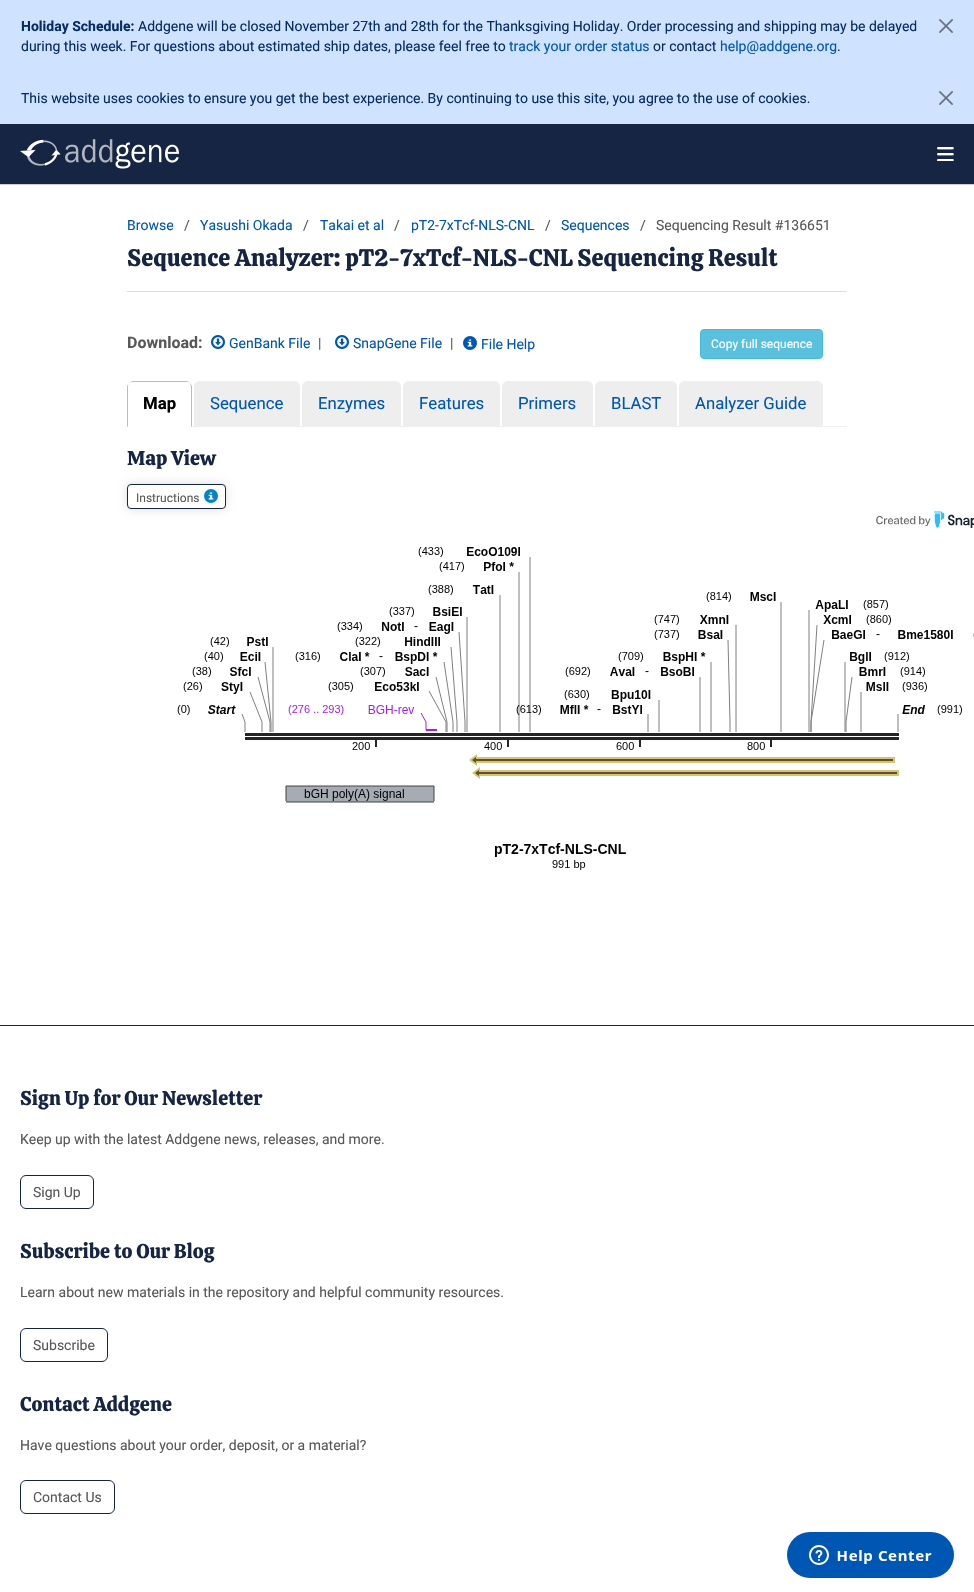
void draw(SkCanvas* canvas) {
	SkPaint fill;
	fill.setAntiAlias(true);
	auto makeFont = [&](const char* family, int weight, float size, bool italic = false) {
		SkFontStyle style(weight, SkFontStyle::kNormal_Width,
			italic ? SkFontStyle::kItalic_Slant : SkFontStyle::kUpright_Slant);
		SkFont result(fontMgr->matchFamilyStyle(family, style), size);
		result.setSubpixel(true);
		return result;
	};
	auto text = [&](const char* s, float x, float y, const SkFont& font) {
		canvas->drawString(s, x, y, font, fill);
	};
	auto box = [&](float l, float t, float r, float b) {
		canvas->drawRect(SkRect::MakeLTRB(l, t, r, b), fill);
	};
	auto picture = [&](const char* path, float l, float t, float r, float b) {
		auto image = SkImages::DeferredFromEncodedData(SkData::MakeFromFileName(path));
		canvas->drawImageRect(image, SkRect::MakeLTRB(l, t, r, b), SkSamplingOptions());
	};
	canvas->clear(0xFFFFFFFF);
	fill.setColor(0xFFCFE2FF);
	box(0, 0, 974, 124);
	picture("image0.png", 939, 19, 953, 33);
	picture("image0.png", 939, 91, 953, 105);
	fill.setColor(0xFFCCCCCC);
	box(0, 184, 974, 185);
	fill.setColor(0xFF172544);
	box(0, 124, 974, 184);
	picture("image1.png", 20, 139, 179, 169);
	picture("image2.png", 937, 147, 954, 161);
	fill.setColor(0xFFDDDDDD);
	box(127, 291, 847, 292);
	picture("image3.png", 211, 335, 225, 349);
	picture("image3.png", 335, 335, 349, 349);
	picture("image4.png", 463, 336, 477, 350);
	fill.setColor(0xFF5BC0DE);
	canvas->drawRoundRect(SkRect::MakeLTRB(700.5f, 329.5f, 822.5f, 358.5f), 3.5f, 3.5f, fill);
	fill.setStyle(SkPaint::kStroke_Style);
	fill.setStrokeWidth(1);
	fill.setColor(0xFF46B8DA);
	canvas->drawRoundRect(SkRect::MakeLTRB(700.5f, 329.5f, 822.5f, 358.5f), 3.5f, 3.5f, fill);
	fill.setStyle(SkPaint::kFill_Style);
	fill.setColor(0xFFEEEEEE);
	box(192, 426, 847, 427);
	fill.setColor(0xFFBBBBBB);
	canvas->drawPath(SkPathBuilder().moveTo(133, 381).cubicTo(132, 381, 130, 382, 129, 383).cubicTo(130, 382, 132, 382, 133, 382).lineTo(186, 382).cubicTo(188, 382, 189, 382, 190, 383).cubicTo(189, 382, 188, 381, 186, 381).close().moveTo(192, 427).lineTo(192, 387).cubicTo(192, 386, 191, 384, 190, 383).cubicTo(190, 384, 191, 386, 191, 387).lineTo(191, 426).close().detach(), fill);
	canvas->drawPath(SkPathBuilder().moveTo(127, 427).lineTo(128, 426).lineTo(128, 387).cubicTo(128, 386, 128, 384, 129, 383).cubicTo(128, 384, 127, 386, 127, 387).close().detach(), fill);
	fill.setColor(0xFFEEEEEE);
	canvas->drawPath(SkPathBuilder().moveTo(200, 381).lineTo(294, 381).cubicTo(297.5f, 381, 300, 383.5f, 300, 387).lineTo(300, 427).lineTo(194, 427).lineTo(194, 387).cubicTo(194, 383.5f, 196.5f, 381, 200, 381).close().detach(), fill);
	canvas->drawPath(SkPathBuilder().moveTo(308, 381).lineTo(395, 381).cubicTo(398.5f, 381, 401, 383.5f, 401, 387).lineTo(401, 427).lineTo(302, 427).lineTo(302, 387).cubicTo(302, 383.5f, 304.5f, 381, 308, 381).close().detach(), fill);
	canvas->drawPath(SkPathBuilder().moveTo(409, 381).lineTo(494, 381).cubicTo(497.5f, 381, 500, 383.5f, 500, 387).lineTo(500, 427).lineTo(403, 427).lineTo(403, 387).cubicTo(403, 383.5f, 405.5f, 381, 409, 381).close().detach(), fill);
	canvas->drawPath(SkPathBuilder().moveTo(508, 381).lineTo(587, 381).cubicTo(590.5f, 381, 593, 383.5f, 593, 387).lineTo(593, 427).lineTo(502, 427).lineTo(502, 387).cubicTo(502, 383.5f, 504.5f, 381, 508, 381).close().detach(), fill);
	canvas->drawPath(SkPathBuilder().moveTo(601, 381).lineTo(671, 381).cubicTo(674.5f, 381, 677, 383.5f, 677, 387).lineTo(677, 427).lineTo(595, 427).lineTo(595, 387).cubicTo(595, 383.5f, 597.5f, 381, 601, 381).close().detach(), fill);
	canvas->drawPath(SkPathBuilder().moveTo(685, 381).lineTo(817, 381).cubicTo(820.5f, 381, 823, 383.5f, 823, 387).lineTo(823, 427).lineTo(679, 427).lineTo(679, 387).cubicTo(679, 383.5f, 681.5f, 381, 685, 381).close().detach(), fill);
	fill.setColor(0xFFDDDDDD);
	fill.setMaskFilter(SkMaskFilter::MakeBlur(kNormal_SkBlurStyle, 5));
	canvas->drawRoundRect(SkRect::MakeLTRB(127, 484, 226, 509), 4, 4, fill);
	fill.setMaskFilter(nullptr);
	fill.setColor(0xFFFFFFFF);
	canvas->drawRoundRect(SkRect::MakeLTRB(127.5f, 484.5f, 225.5f, 508.5f), 3.5f, 3.5f, fill);
	fill.setStyle(SkPaint::kStroke_Style);
	fill.setColor(0xFF172544);
	canvas->drawRoundRect(SkRect::MakeLTRB(127.5f, 484.5f, 225.5f, 508.5f), 3.5f, 3.5f, fill);
	picture("image5.png", 204, 489, 218, 503);
	picture("image6.png", 177, 511, 974, 870);
	fill.setStyle(SkPaint::kFill_Style);
	box(0, 1025, 974, 1026);
	fill.setStyle(SkPaint::kStroke_Style);
	canvas->drawRoundRect(SkRect::MakeLTRB(20.5f, 1175.5f, 93.5f, 1208.5f), 5.5f, 5.5f, fill);
	canvas->drawRoundRect(SkRect::MakeLTRB(20.5f, 1328.5f, 107.5f, 1361.5f), 5.5f, 5.5f, fill);
	canvas->drawRoundRect(SkRect::MakeLTRB(20.5f, 1480.5f, 114.5f, 1513.5f), 5.5f, 5.5f, fill);
	picture("image7.png", 787, 1532, 954, 1578);
	auto font1 = makeFont("Roboto", 700, 14);
	fill.setStyle(SkPaint::kFill_Style);
	fill.setColor(0xFF052C65);
	text("Holiday Schedule:", 21, 31, font1);
	auto font2 = makeFont("Roboto", 400, 14);
	text("Addgene will be closed November 27th and 28th for the Thanksgiving Holiday. Order processing and shipping may be delayed", 138, 31, font2);
	text("during this week. For questions about estimated ship dates, please feel free to", 21, 51, font2);
	fill.setColor(0xFF0056B3);
	text("track your order status", 509, 51, font2);
	fill.setColor(0xFF052C65);
	text("or contact", 653, 51, font2);
	fill.setColor(0xFF0056B3);
	text("help@addgene.org", 720, 51, font2);
	fill.setColor(0xFF052C65);
	text(".", 837, 51, font2);
	text("This website uses cookies to ensure you get the best experience. By continuing to use this site, you agree to the use of cookies.", 21, 103, font2);
	fill.setColor(0xFF0056B3);
	text("Browse", 127, 230, font2);
	fill.setColor(0xFF585858);
	text("/", 184, 230, font2);
	fill.setColor(0xFF0056B3);
	text("Yasushi Okada", 200, 230, font2);
	fill.setColor(0xFF585858);
	text("/", 303, 230, font2);
	fill.setColor(0xFF0056B3);
	text("Takai et al", 320, 230, font2);
	fill.setColor(0xFF585858);
	text("/", 394, 230, font2);
	fill.setColor(0xFF0056B3);
	text("pT2-7xTcf-NLS-CNL", 411, 230, font2);
	fill.setColor(0xFF585858);
	text("/", 545, 230, font2);
	fill.setColor(0xFF0056B3);
	text("Sequences", 561, 230, font2);
	fill.setColor(0xFF585858);
	text("/", 640, 230, font2);
	text("Sequencing Result #136651", 656, 230, font2);
	auto font3 = makeFont("Calistoga", 400, 24);
	fill.setColor(0xFF172544);
	text("Sequence Analyzer: pT2-7xTcf-NLS-CNL Sequencing Result", 127, 266, font3);
	auto font4 = makeFont("Roboto", 700, 16);
	fill.setColor(0xFF585858);
	text("Download:", 127, 348, font4);
	fill.setColor(0xFF0056B3);
	text("GenBank File", 229, 348, font2);
	fill.setColor(0xFF585858);
	text("|", 318, 348, font2);
	fill.setColor(0xFF0056B3);
	text("SnapGene File", 353, 348, font2);
	fill.setColor(0xFF585858);
	text("|", 450, 348, font2);
	fill.setColor(0xFF0056B3);
	text("File Help", 481, 349, font2);
	auto font5 = makeFont("Roboto", 400, 12);
	fill.setColor(0xFFFFFFFF);
	text("Copy full sequence", 711, 348, font5);
	auto font6 = makeFont("Roboto", 700, 16.75f);
	fill.setColor(0xFF000000);
	text("Map", 143, 409, font6);
	auto font7 = makeFont("Roboto", 400, 16.75f);
	fill.setColor(0xFF0056B3);
	text("Sequence", 210, 409, font7);
	text("Enzymes", 318, 409, font7);
	text("Features", 419, 409, font7);
	text("Primers", 518, 409, font7);
	text("BLAST", 611, 409, font7);
	text("Analyzer Guide", 695, 409, font7);
	auto font8 = makeFont("Calistoga", 400, 20);
	fill.setColor(0xFF172544);
	text("Map View", 127, 465, font8);
	fill.setColor(0xFF585858);
	text("Instructions", 136, 502, font5);
	fill.setColor(0xFF172544);
	text("Sign Up for Our Newsletter", 20, 1105, font8);
	fill.setColor(0xFF585858);
	text("Keep up with the latest Addgene news, releases, and more.", 20, 1144, font2);
	text("Sign Up", 33, 1197, font2);
	fill.setColor(0xFF172544);
	text("Subscribe to Our Blog", 20, 1258, font8);
	fill.setColor(0xFF585858);
	text("Learn about new materials in the repository and helpful community resources.", 20, 1297, font2);
	text("Subscribe", 33, 1350, font2);
	fill.setColor(0xFF172544);
	text("Contact Addgene", 20, 1411, font8);
	fill.setColor(0xFF585858);
	text("Have questions about your order, deposit, or a material?", 20, 1450, font2);
	text("Contact Us", 33, 1502, font2);
}
